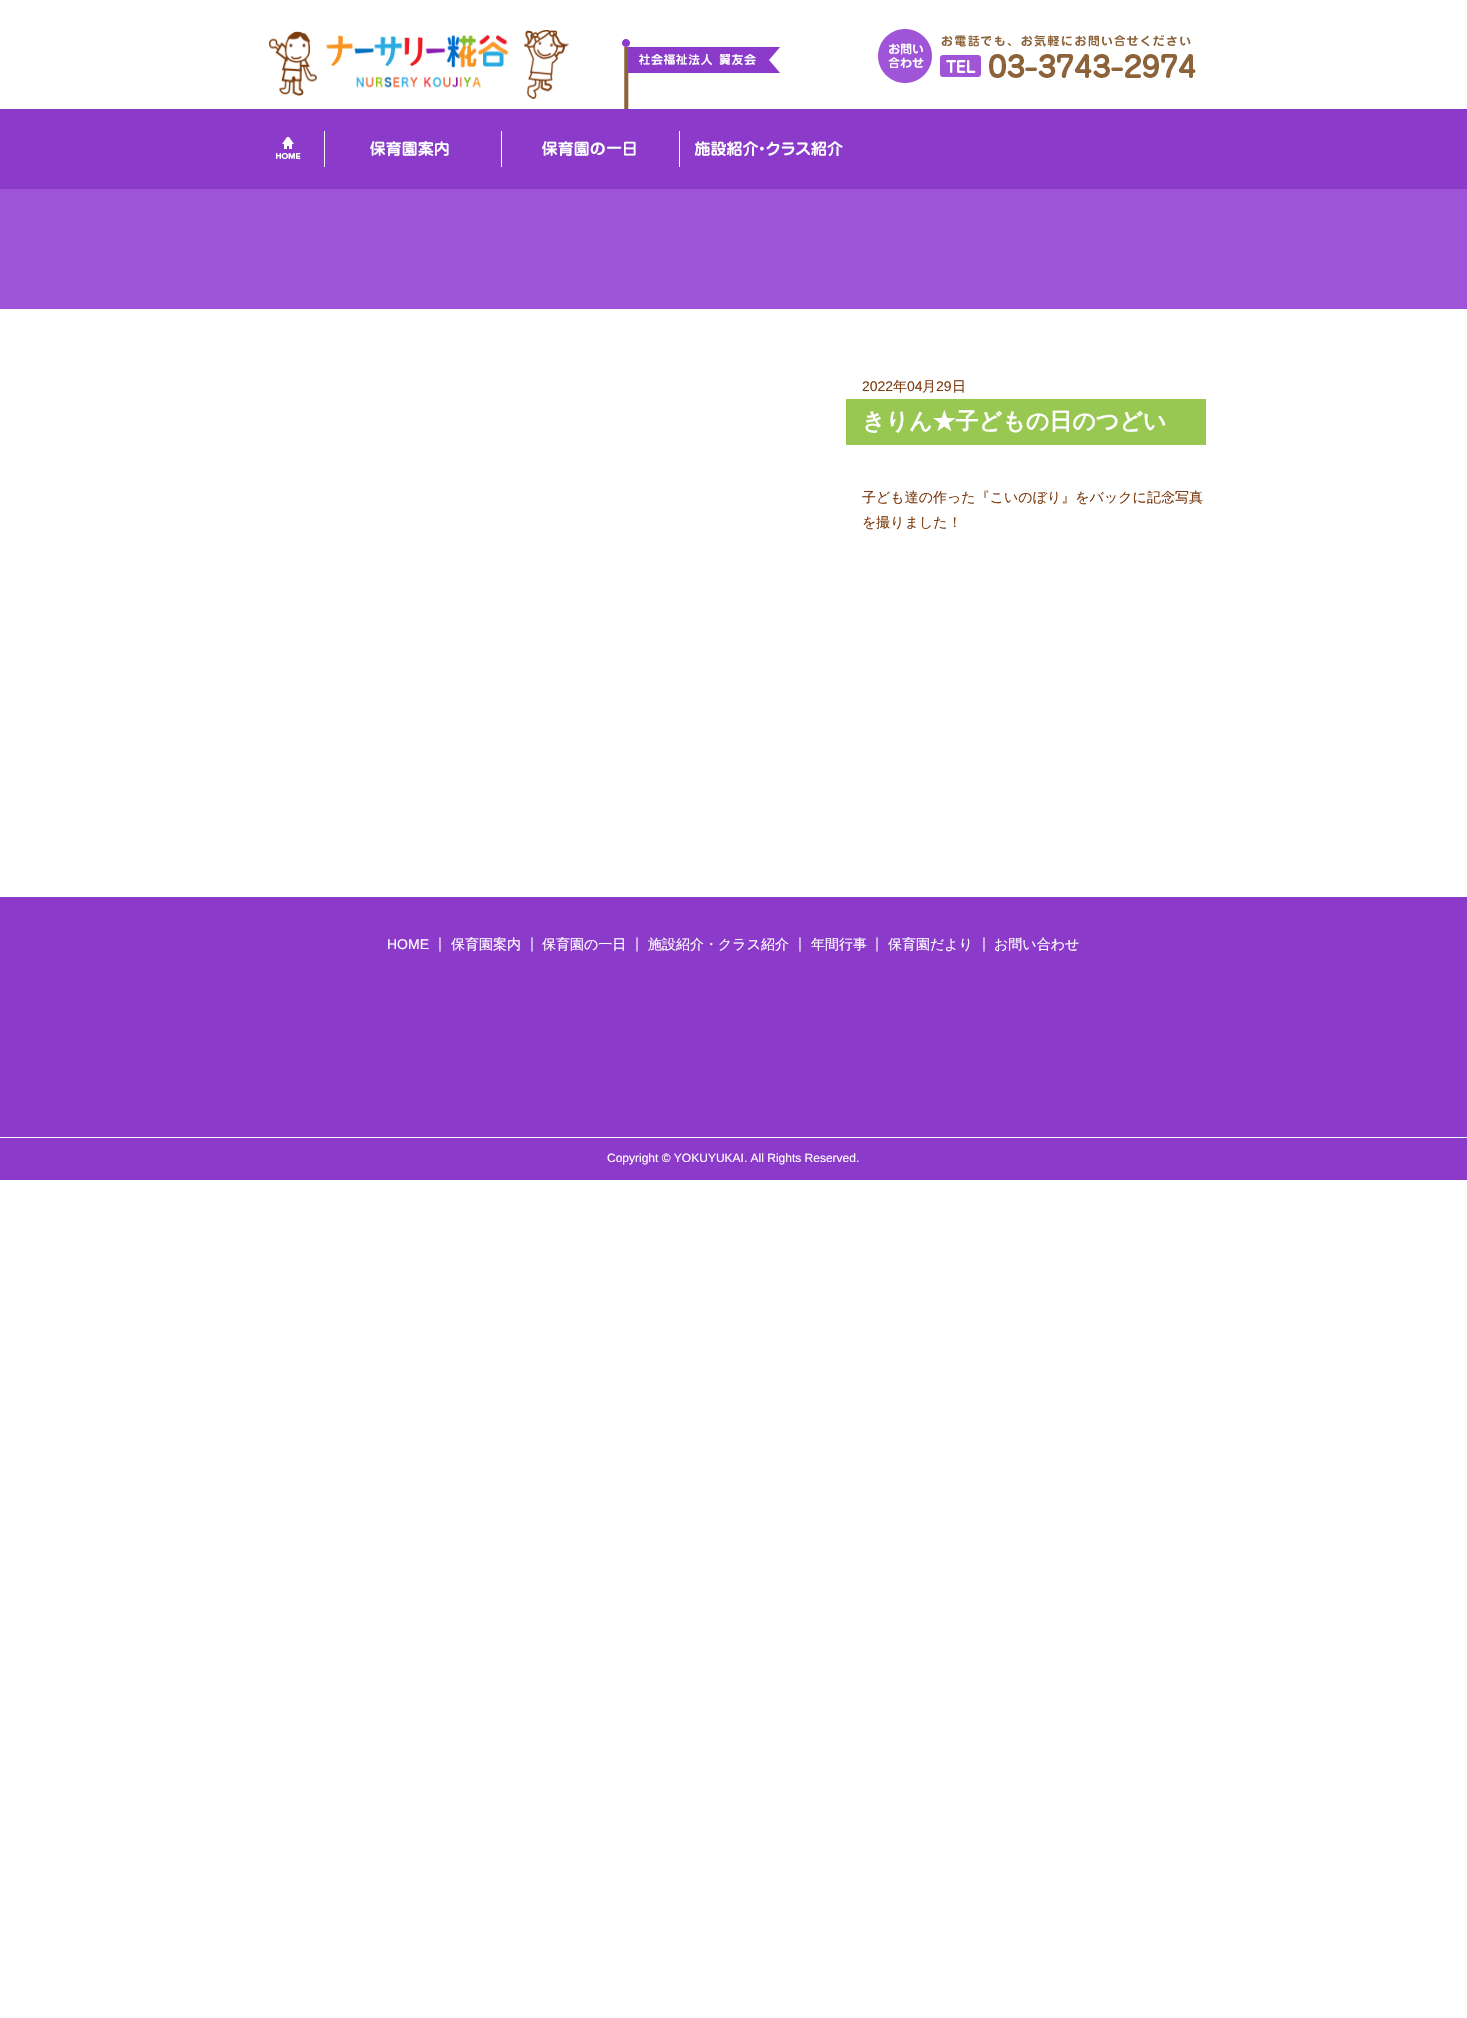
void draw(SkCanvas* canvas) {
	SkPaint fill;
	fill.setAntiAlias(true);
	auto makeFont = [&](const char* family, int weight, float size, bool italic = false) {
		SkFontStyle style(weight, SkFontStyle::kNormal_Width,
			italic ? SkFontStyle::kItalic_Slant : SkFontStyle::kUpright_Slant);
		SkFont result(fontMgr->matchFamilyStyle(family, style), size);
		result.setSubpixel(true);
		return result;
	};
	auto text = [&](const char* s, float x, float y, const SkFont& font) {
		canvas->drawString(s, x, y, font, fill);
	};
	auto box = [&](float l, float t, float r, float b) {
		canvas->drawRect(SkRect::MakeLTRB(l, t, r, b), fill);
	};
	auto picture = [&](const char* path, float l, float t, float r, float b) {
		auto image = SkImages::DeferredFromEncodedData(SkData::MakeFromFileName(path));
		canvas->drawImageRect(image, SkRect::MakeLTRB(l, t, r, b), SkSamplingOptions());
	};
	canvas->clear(0xFFFFFFFF);
	picture("image0.png", 269, 30, 570, 99);
	picture("image1.png", 622, 39, 780, 109);
	picture("image2.png", 878, 29, 1196, 83);
	fill.setColor(0xFF8B3AC9);
	box(0, 109, 1467, 189);
	picture("image3.png", 276, 137, 301, 159);
	picture("image4.png", 324, 131, 449, 167);
	picture("image5.png", 501, 131, 636, 167);
	picture("image6.png", 679, 131, 843, 167);
	fill.setColor(0xFF9F54D8);
	box(0, 189, 1467, 309);
	fill.setColor(0xFF98C852);
	box(846, 399, 1206, 445);
	fill.setColor(0xFF8B3AC9);
	box(0, 897, 1467, 1180);
	fill.setColor(0xFFFFFFFF);
	box(0, 1137, 1467, 1138);
	auto font1 = makeFont("Liberation Sans", 400, 14);
	fill.setColor(0xFF7D3C0F);
	text("2022", 862, 391, font1);
	auto font2 = makeFont("WenQuanYi Zen Hei", 500, 14);
	text("年", 893, 391, font2);
	text("04", 907, 391, font1);
	text("月", 922, 391, font2);
	text("29", 936, 391, font1);
	text("日", 952, 391, font2);
	auto font3 = makeFont("WenQuanYi Zen Hei", 700, 23);
	fill.setColor(0xFFFFFFFF);
	text("きりん★子どもの日のつどい", 862, 429, font3);
	fill.setColor(0xFF7D3C0F);
	text("子ども達の作った『こいのぼり』をバックに記念写真", 862, 502, font2);
	text("を撮りました！", 862, 527, font2);
	fill.setColor(0xFFFFFFFF);
	text("HOME", 387, 949, font1);
	text("｜", 433, 948, font2);
	text("保育園案内", 451, 949, font2);
	text("｜", 525, 948, font2);
	text("保育園の一日", 542, 949, font2);
	text("｜", 630, 948, font2);
	text("施設紹介・クラス紹介", 648, 949, font2);
	text("｜", 793, 948, font2);
	text("年間行事", 811, 949, font2);
	text("｜", 870, 948, font2);
	text("保育園だより", 888, 949, font2);
	text("｜", 977, 948, font2);
	text("お問い合わせ", 994, 949, font2);
	auto font4 = makeFont("Liberation Sans", 400, 12);
	text("Copyright © YOKUYUKAI. All Rights Reserved.", 607, 1162, font4);
}
